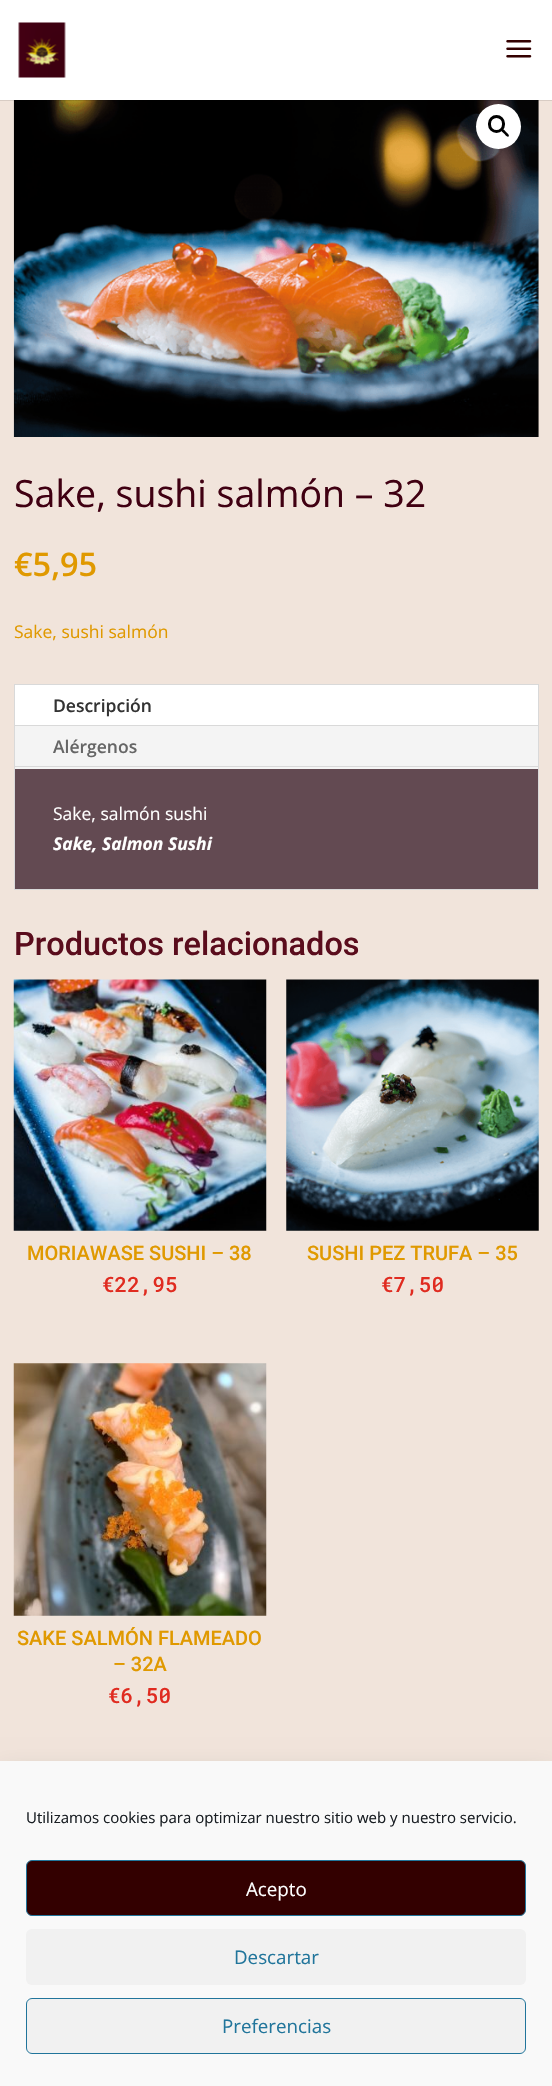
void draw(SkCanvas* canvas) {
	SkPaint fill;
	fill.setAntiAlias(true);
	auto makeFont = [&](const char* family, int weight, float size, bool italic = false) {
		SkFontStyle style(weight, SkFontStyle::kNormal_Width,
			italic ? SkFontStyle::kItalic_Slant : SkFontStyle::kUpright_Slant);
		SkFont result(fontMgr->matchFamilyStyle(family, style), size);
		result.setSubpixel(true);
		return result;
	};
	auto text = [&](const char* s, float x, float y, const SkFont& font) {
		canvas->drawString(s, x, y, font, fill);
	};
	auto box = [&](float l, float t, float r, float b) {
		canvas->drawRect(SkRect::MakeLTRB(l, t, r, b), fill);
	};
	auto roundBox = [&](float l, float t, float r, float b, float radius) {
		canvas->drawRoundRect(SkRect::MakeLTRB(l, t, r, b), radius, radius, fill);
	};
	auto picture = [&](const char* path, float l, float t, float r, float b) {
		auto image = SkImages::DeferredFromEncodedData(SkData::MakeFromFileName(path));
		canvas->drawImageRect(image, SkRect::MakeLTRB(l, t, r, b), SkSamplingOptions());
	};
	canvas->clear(0xFFF1E4DB);
	picture("image2.png", 13, 100, 539, 437);
	fill.setColor(0x1A000000);
	canvas->drawPath(SkPathBuilder().moveTo(0, 100).lineTo(0, 101).lineTo(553, 101).lineTo(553, 1).lineTo(552, 1).lineTo(552, 100).close().detach(), fill);
	fill.setColor(0xFFFFFFFF);
	box(0, 0, 552, 100);
	picture("image0.png", 18, 22, 66, 78);
	picture("image1.png", 506, 40, 532, 58);
	canvas->drawCircle(498.5f, 126.5f, 22.5f, fill);
	fill.setStyle(SkPaint::kStroke_Style);
	fill.setStrokeWidth(3);
	fill.setColor(0xFF000000);
	canvas->drawRoundRect(SkRect::MakeLTRB(489.5f, 116.5f, 503.5f, 131.5f), 7, 7, fill);
	fill.setStyle(SkPaint::kFill_Style);
	canvas->drawPath(SkPathBuilder().moveTo(501.5f, 129).cubicTo(503, 128, 505, 131, 506, 132).cubicTo(506.5f, 132.5f, 510, 135, 508.5f, 136.5f).cubicTo(507, 137.5f, 505, 134.5f, 504, 133.5f).cubicTo(503.5f, 133, 500, 130.5f, 501.5f, 129).close().detach(), fill);
	fill.setStyle(SkPaint::kStroke_Style);
	fill.setStrokeWidth(1);
	fill.setColor(0xFFD9D9D9);
	canvas->drawRect(SkRect::MakeLTRB(14.5f, 684.5f, 538.5f, 889.5f), fill);
	fill.setStyle(SkPaint::kFill_Style);
	fill.setColor(0xFFF4F4F4);
	box(15, 726, 538, 769);
	fill.setColor(0xFFFFFFFF);
	box(15, 685, 538, 725);
	fill.setColor(0xFFD9D9D9);
	box(15, 725, 538, 726);
	box(15, 766, 538, 767);
	fill.setColor(0xFF634A52);
	box(15, 769, 538, 889);
	picture("image3.png", 13, 979, 267, 1231);
	picture("image4.png", 286, 979, 539, 1231);
	picture("image5.png", 13, 1363, 267, 1616);
	fill.setColor(0x30000000);
	fill.setMaskFilter(SkMaskFilter::MakeBlur(kNormal_SkBlurStyle, 12.5f));
	canvas->drawRect(SkRect::MakeLTRB(0, 1774, 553, 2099), fill);
	fill.setMaskFilter(nullptr);
	fill.setColor(0xFFF9F9F9);
	box(0, 1761, 552, 2086);
	fill.setColor(0xFF330000);
	canvas->drawRoundRect(SkRect::MakeLTRB(26.5f, 1860.5f, 525.5f, 1915.5f), 5.5f, 5.5f, fill);
	fill.setStyle(SkPaint::kStroke_Style);
	fill.setColor(0xFF21759B);
	canvas->drawRoundRect(SkRect::MakeLTRB(26.5f, 1860.5f, 525.5f, 1915.5f), 5.5f, 5.5f, fill);
	fill.setStyle(SkPaint::kFill_Style);
	fill.setColor(0xFFF1F1F1);
	roundBox(26, 1929, 526, 1985, 6);
	canvas->drawRoundRect(SkRect::MakeLTRB(26.5f, 1998.5f, 525.5f, 2053.5f), 5.5f, 5.5f, fill);
	fill.setStyle(SkPaint::kStroke_Style);
	fill.setColor(0xFF21759B);
	canvas->drawRoundRect(SkRect::MakeLTRB(26.5f, 1998.5f, 525.5f, 2053.5f), 5.5f, 5.5f, fill);
	auto font1 = makeFont("Open Sans", 400, 37.5f);
	fill.setStyle(SkPaint::kFill_Style);
	fill.setColor(0xFF400012);
	text("Sake, sushi salmón – 32", 14, 507, font1);
	auto font2 = makeFont("Open Sans", 600, 32.5f);
	fill.setColor(0xFFE09900);
	text("€5,95", 14, 576, font2);
	auto font3 = makeFont("Open Sans", 400, 17.5f);
	text("Sake, sushi salmón", 14, 638, font3);
	auto font4 = makeFont("Open Sans", 600, 17.5f);
	fill.setColor(0xFF333333);
	text("Descripción", 53, 712, font4);
	fill.setColor(0xFF666666);
	text("Alérgenos", 53, 753, font4);
	fill.setColor(0xFFFFFFFF);
	text("Sake, salmón sushi", 53, 820, font3);
	auto font5 = makeFont("Open Sans", 700, 17.5f, true);
	text("Sake, Salmon Sushi", 53, 850, font5);
	auto font6 = makeFont("Roboto", 500, 32.5f);
	fill.setColor(0xFF5A0C1C);
	text("Productos relacionados", 14, 955, font6);
	auto font7 = makeFont("Roboto", 500, 20);
	fill.setColor(0xFFE09900);
	text("MORIAWASE SUSHI – 38", 27, 1260, font7);
	auto font8 = makeFont("Roboto Mono", 500, 21);
	fill.setColor(0xFFE02B20);
	text("€22,95", 102, 1292, font8);
	fill.setColor(0xFFE09900);
	text("SUSHI PEZ TRUFA – 35", 307, 1260, font7);
	fill.setColor(0xFFE02B20);
	text("€7,50", 381, 1292, font8);
	fill.setColor(0xFFE09900);
	text("SAKE SALMÓN FLAMEADO", 17, 1645, font7);
	text("– 32A", 113, 1671, font7);
	fill.setColor(0xFFE02B20);
	text("€6,50", 108, 1703, font8);
	auto font9 = makeFont("Open Sans", 400, 15);
	fill.setColor(0xFF191E23);
	text("Utilizamos cookies para optimizar nuestro sitio web y nuestro servicio.", 26, 1823, font9);
	auto font10 = makeFont("Open Sans", 400, 18.75f);
	fill.setColor(0xFFFFFFFF);
	text("Acepto", 246, 1896, font10);
	fill.setColor(0xFF21759B);
	text("Descartar", 234, 1964, font10);
	text("Preferencias", 222, 2033, font10);
}
